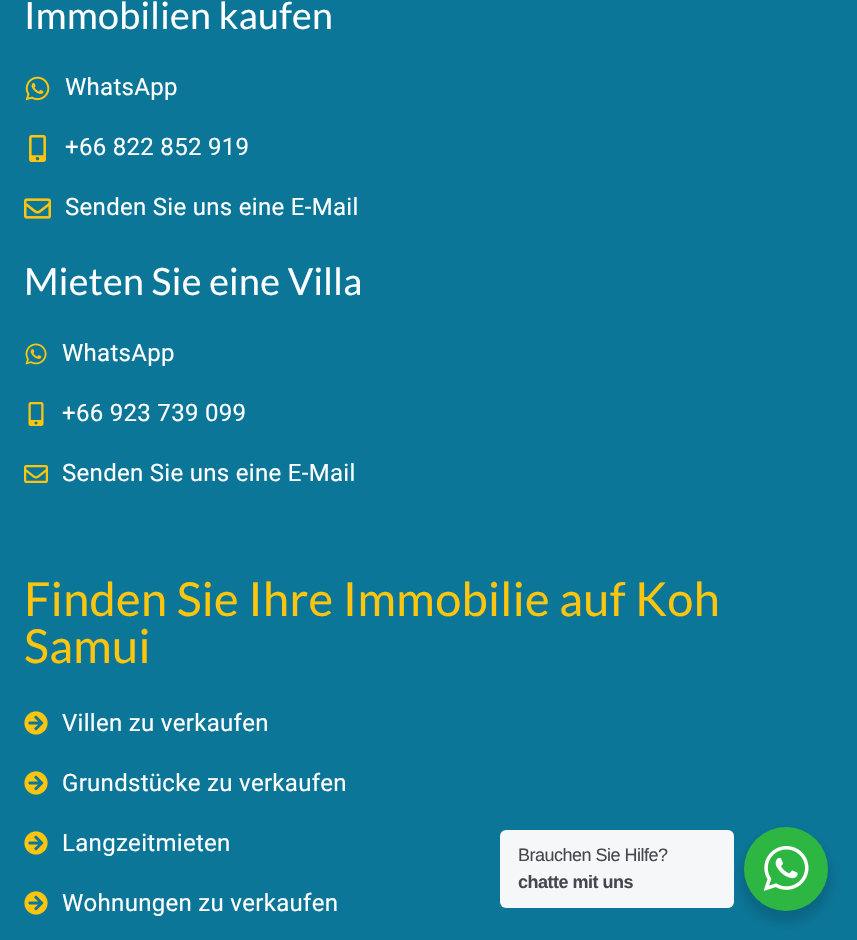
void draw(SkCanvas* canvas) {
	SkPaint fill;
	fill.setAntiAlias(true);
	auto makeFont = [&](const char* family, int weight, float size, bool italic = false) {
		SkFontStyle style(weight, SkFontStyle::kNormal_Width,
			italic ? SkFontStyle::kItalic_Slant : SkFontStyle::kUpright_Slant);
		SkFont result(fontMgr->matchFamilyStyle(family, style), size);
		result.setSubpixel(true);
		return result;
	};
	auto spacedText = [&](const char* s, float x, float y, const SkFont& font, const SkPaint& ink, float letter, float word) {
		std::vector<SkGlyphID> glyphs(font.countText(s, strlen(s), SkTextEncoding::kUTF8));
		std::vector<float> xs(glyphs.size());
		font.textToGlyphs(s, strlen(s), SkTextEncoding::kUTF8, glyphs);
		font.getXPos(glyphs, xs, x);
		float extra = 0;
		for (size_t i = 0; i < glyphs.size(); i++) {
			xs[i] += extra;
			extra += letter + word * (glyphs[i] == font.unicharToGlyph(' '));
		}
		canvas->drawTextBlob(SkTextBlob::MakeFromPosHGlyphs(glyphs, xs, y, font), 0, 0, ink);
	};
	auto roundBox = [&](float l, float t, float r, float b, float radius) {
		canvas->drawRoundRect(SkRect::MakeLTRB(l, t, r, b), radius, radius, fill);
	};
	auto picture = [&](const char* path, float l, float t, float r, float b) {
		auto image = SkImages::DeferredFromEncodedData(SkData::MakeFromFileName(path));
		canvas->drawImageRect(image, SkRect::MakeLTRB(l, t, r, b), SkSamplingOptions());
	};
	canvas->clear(0xFF0C7699);
	picture("image0.png", 25, 76, 50, 101);
	picture("image1.png", 29, 135, 46, 162);
	picture("image2.png", 24, 198, 51, 219);
	picture("image3.png", 25, 343, 47, 365);
	picture("image4.png", 28, 402, 44, 426);
	picture("image5.png", 24, 465, 48, 483);
	picture("image6.png", 24, 711, 48, 735);
	picture("image6.png", 24, 771, 48, 795);
	picture("image6.png", 24, 831, 48, 855);
	picture("image6.png", 24, 891, 48, 915);
	fill.setColor(0x24000000);
	fill.setMaskFilter(SkMaskFilter::MakeBlur(kNormal_SkBlurStyle, 6));
	canvas->drawRoundRect(SkRect::MakeLTRB(741, 833, 831, 923), 45, 45, fill);
	fill.setMaskFilter(nullptr);
	fill.setColor(0xFFF5F7F9);
	roundBox(500, 830, 734, 908, 6);
	fill.setColor(0xFF2DB742);
	canvas->drawCircle(786, 869, 42, fill);
	picture("image7.png", 764, 846, 809, 891);
	auto font1 = makeFont("Lato", 400, 37.5f);
	fill.setColor(0xFFFFFFFF);
	spacedText("Immobilien kaufen", 24, 29, font1, fill, 0.3f, 0);
	auto font2 = makeFont("Roboto", 400, 24);
	spacedText("WhatsApp", 65, 95, font2, fill, 0.3f, 0);
	spacedText("+66 822 852 919", 65, 155, font2, fill, 0.3f, 0);
	spacedText("Senden Sie uns eine E-Mail", 65, 215, font2, fill, 0.3f, 0);
	spacedText("Mieten Sie eine Villa", 24, 295, font1, fill, 0.3f, 0);
	spacedText("WhatsApp", 62, 361, font2, fill, 0.3f, 0);
	spacedText("+66 923 739 099", 62, 421, font2, fill, 0.3f, 0);
	spacedText("Senden Sie uns eine E-Mail", 62, 481, font2, fill, 0.3f, 0);
	auto font3 = makeFont("Lato", 400, 46.9f);
	fill.setColor(0xFFFDC50D);
	spacedText("Finden Sie Ihre Immobilie auf Koh", 24, 616, font3, fill, 0.3f, 0);
	spacedText("Samui", 24, 663, font3, fill, 0.3f, 0);
	fill.setColor(0xFFFFFFFF);
	spacedText("Villen zu verkaufen", 62, 731, font2, fill, 0.3f, 0);
	spacedText("Grundstücke zu verkaufen", 62, 791, font2, fill, 0.3f, 0);
	spacedText("Langzeitmieten", 62, 851, font2, fill, 0.3f, 0);
	spacedText("Wohnungen zu verkaufen", 62, 911, font2, fill, 0.3f, 0);
	auto font4 = makeFont("Liberation Sans", 400, 18);
	fill.setColor(0xFF43474E);
	spacedText("Brauchen Sie Hilfe?", 518, 861, font4, fill, -0.5f, 0);
	auto font5 = makeFont("Liberation Sans", 700, 18);
	spacedText("chatte mit uns", 518, 888, font5, fill, -0.5f, 0);
}
